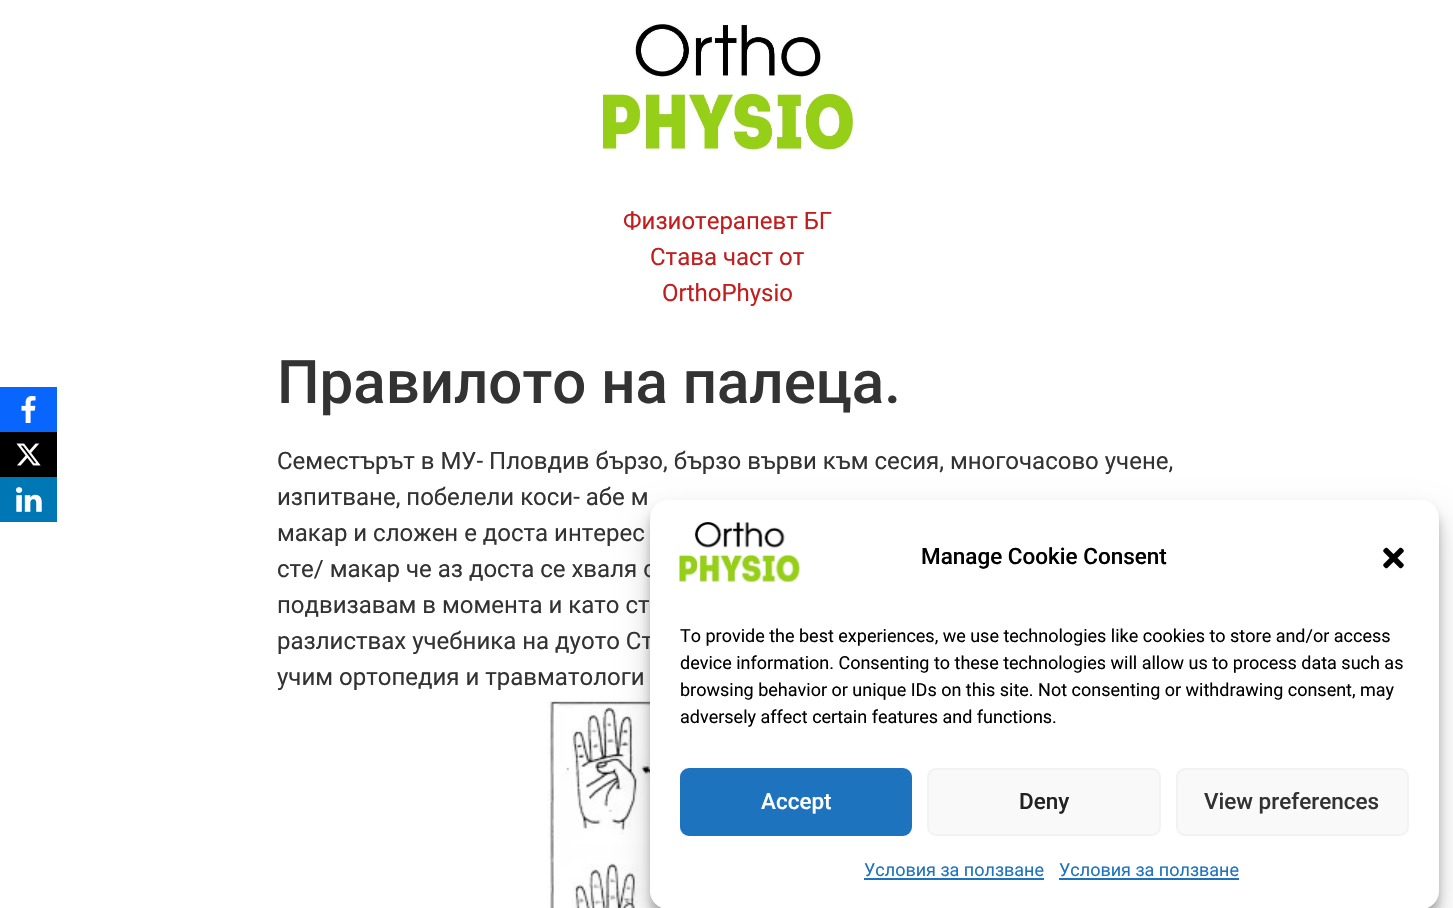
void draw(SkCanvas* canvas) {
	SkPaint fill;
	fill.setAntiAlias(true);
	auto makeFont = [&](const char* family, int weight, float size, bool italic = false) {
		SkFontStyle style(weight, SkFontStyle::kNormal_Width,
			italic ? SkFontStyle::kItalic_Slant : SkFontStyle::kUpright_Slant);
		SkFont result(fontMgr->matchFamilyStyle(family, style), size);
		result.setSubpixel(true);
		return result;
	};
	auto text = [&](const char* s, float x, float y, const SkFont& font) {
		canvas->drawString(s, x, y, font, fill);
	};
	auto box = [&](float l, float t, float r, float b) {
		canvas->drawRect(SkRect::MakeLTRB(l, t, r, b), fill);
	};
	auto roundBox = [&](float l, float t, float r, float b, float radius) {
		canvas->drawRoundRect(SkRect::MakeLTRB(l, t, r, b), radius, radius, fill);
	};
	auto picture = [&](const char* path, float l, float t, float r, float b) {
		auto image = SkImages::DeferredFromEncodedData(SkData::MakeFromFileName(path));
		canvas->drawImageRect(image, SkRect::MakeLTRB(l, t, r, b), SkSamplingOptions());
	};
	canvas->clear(0xFFFFFFFF);
	picture("image0.png", 603, 24, 854, 150);
	fill.setColor(0xFF0866FF);
	box(0, 387, 57, 432);
	picture("image1.png", 21, 396, 36, 423);
	fill.setColor(0xFF000000);
	box(0, 432, 57, 477);
	picture("image2.png", 16, 443, 41, 466);
	fill.setColor(0xFF0077B5);
	box(0, 477, 57, 522);
	picture("image3.png", 16, 487, 42, 512);
	picture("image4.png", 547, 698, 662, 908);
	fill.setColor(0x3B000000);
	fill.setMaskFilter(SkMaskFilter::MakeBlur(kNormal_SkBlurStyle, 4.5f));
	canvas->drawRoundRect(SkRect::MakeLTRB(650, 509, 1439, 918), 18, 18, fill);
	fill.setMaskFilter(nullptr);
	fill.setColor(0x30000000);
	fill.setMaskFilter(SkMaskFilter::MakeBlur(kNormal_SkBlurStyle, 15));
	canvas->drawRoundRect(SkRect::MakeLTRB(650, 515, 1439, 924), 18, 18, fill);
	fill.setMaskFilter(nullptr);
	auto font1 = makeFont("Roboto", 400, 24);
	fill.setColor(0xFFC31E1E);
	text("Физиотерапевт БГ", 623, 229, font1);
	text("Става част от", 650, 265, font1);
	text("OrthoPhysio", 662, 301, font1);
	auto font2 = makeFont("Roboto", 500, 60);
	fill.setColor(0xFF333333);
	text("Правилото на палеца.", 277, 403, font2);
	text("Семестърът в МУ- Пловдив бързо, бързо върви към сесия, многочасово учене,", 277, 469, font1);
	text("изпитване, побелели коси- абе м", 277, 505, font1);
	text("макар и сложен е доста интерес", 277, 541, font1);
	text("сте/ макар че аз доста се хваля с", 277, 577, font1);
	text("подвизавам в момента и като ст", 277, 613, font1);
	text("разлиствах учебника на дуото Ст", 277, 649, font1);
	text("учим ортопедия и травматологи", 277, 685, font1);
	fill.setColor(0xFFFFFFFF);
	roundBox(650, 500, 1439, 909, 18);
	picture("image5.png", 679, 522, 800, 582);
	auto font3 = makeFont("Roboto", 500, 22.5f);
	fill.setColor(0xFF000000);
	text("Manage Cookie Consent", 921, 564, font3);
	picture("image6.png", 1383, 547, 1404, 569);
	auto font4 = makeFont("Roboto", 400, 18);
	text("To provide the best experiences, we use technologies like cookies to store and/or access", 680, 642, font4);
	text("device information. Consenting to these technologies will allow us to process data such as", 680, 669, font4);
	text("browsing behavior or unique IDs on this site. Not consenting or withdrawing consent, may", 680, 696, font4);
	text("adversely affect certain features and functions.", 680, 723, font4);
	fill.setColor(0xFF1E73BE);
	canvas->drawRoundRect(SkRect::MakeLTRB(681, 769, 911, 835), 8, 8, fill);
	fill.setStyle(SkPaint::kStroke_Style);
	fill.setStrokeWidth(2);
	canvas->drawRoundRect(SkRect::MakeLTRB(681, 769, 911, 835), 8, 8, fill);
	fill.setStyle(SkPaint::kFill_Style);
	fill.setColor(0xFFFFFFFF);
	text("Accept", 761, 809, font3);
	fill.setColor(0xFFF9F9F9);
	canvas->drawRoundRect(SkRect::MakeLTRB(928, 769, 1160, 835), 8, 8, fill);
	fill.setStyle(SkPaint::kStroke_Style);
	fill.setColor(0xFFF2F2F2);
	canvas->drawRoundRect(SkRect::MakeLTRB(928, 769, 1160, 835), 8, 8, fill);
	fill.setStyle(SkPaint::kFill_Style);
	fill.setColor(0xFF222222);
	text("Deny", 1019, 809, font3);
	fill.setColor(0xFFF9F9F9);
	canvas->drawRoundRect(SkRect::MakeLTRB(1177, 769, 1408, 835), 8, 8, fill);
	fill.setStyle(SkPaint::kStroke_Style);
	fill.setColor(0xFFF2F2F2);
	canvas->drawRoundRect(SkRect::MakeLTRB(1177, 769, 1408, 835), 8, 8, fill);
	fill.setStyle(SkPaint::kFill_Style);
	fill.setColor(0xFF333333);
	text("View preferences", 1204, 809, font3);
	fill.setColor(0xFF1E73BE);
	text("Условия за ползване", 864, 876, font4);
	box(864, 878, 1044, 880);
	text("Условия за ползване", 1059, 876, font4);
	box(1059, 878, 1239, 880);
}
